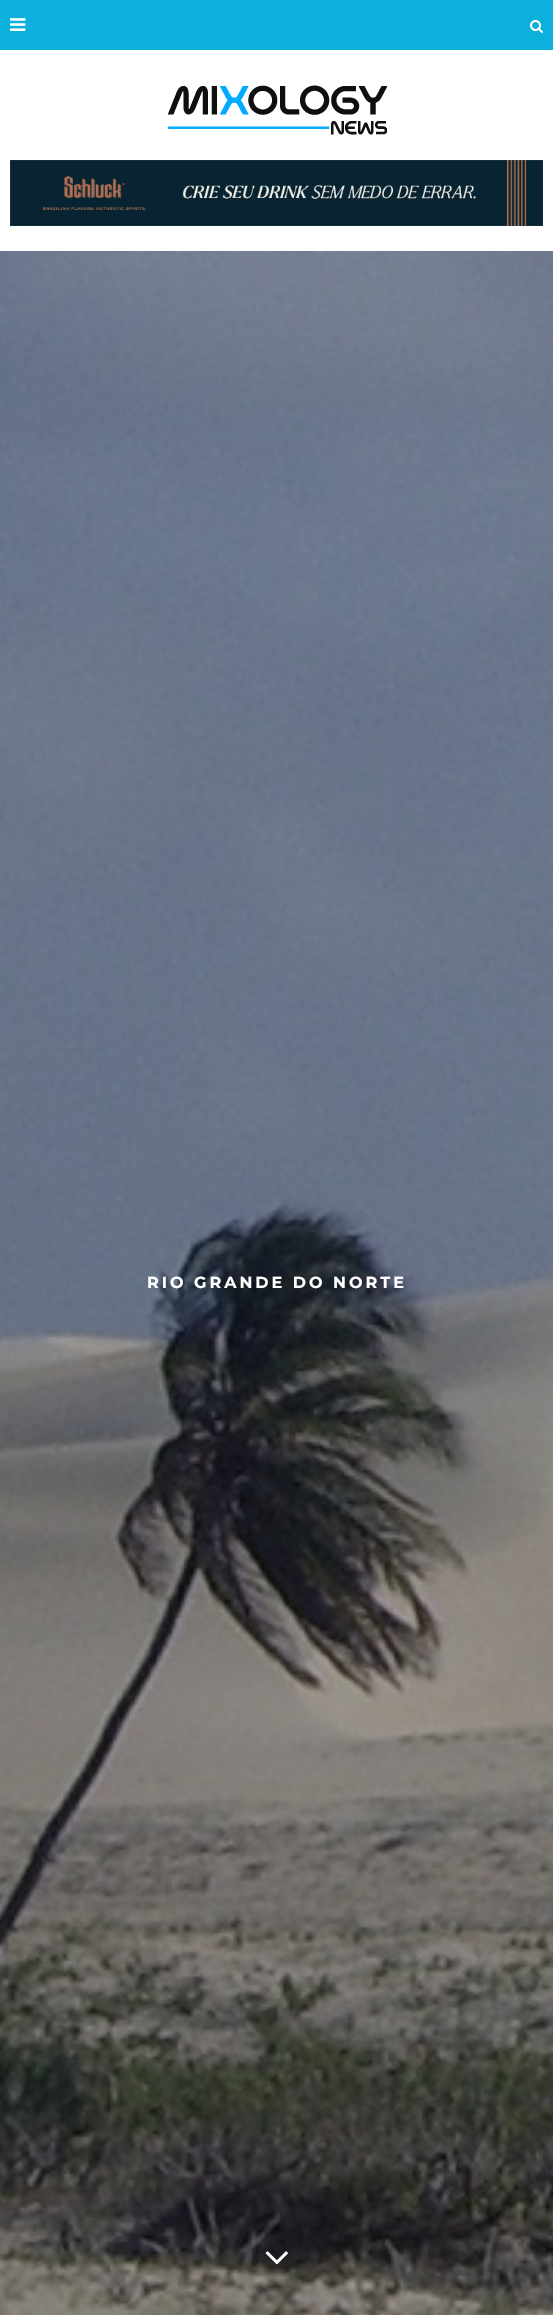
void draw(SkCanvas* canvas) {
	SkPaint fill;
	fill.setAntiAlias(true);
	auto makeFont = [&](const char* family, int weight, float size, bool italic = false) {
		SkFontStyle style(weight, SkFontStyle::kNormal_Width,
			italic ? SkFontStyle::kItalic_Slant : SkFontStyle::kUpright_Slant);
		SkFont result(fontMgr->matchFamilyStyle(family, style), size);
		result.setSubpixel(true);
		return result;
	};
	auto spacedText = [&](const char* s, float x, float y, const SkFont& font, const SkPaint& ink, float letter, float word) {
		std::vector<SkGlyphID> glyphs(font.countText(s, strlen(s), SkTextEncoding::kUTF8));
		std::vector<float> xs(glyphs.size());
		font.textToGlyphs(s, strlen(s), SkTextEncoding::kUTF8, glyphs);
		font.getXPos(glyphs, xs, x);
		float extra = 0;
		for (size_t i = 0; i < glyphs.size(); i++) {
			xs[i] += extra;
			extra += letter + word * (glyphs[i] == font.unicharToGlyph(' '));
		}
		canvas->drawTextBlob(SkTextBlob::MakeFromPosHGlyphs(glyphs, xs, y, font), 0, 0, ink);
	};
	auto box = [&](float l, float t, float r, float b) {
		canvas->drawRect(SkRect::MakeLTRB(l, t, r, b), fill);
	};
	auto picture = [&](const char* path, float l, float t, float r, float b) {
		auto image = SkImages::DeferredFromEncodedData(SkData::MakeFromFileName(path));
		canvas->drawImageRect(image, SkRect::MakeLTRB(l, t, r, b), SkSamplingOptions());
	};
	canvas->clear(0xFF161616);
	fill.setColor(0xFF0CB1DB);
	box(0, 0, 553, 50);
	picture("image0.png", 10, 18, 26, 31);
	picture("image1.png", 530, 20, 543, 33);
	fill.setColor(0xFFFFFFFF);
	box(0, 50, 553, 251);
	picture("image2.png", 167, 85, 387, 135);
	picture("image3.png", 10, 160, 543, 226);
	picture("image4.png", 0, 251, 553, 2315);
	picture("image5.png", 265, 2251, 288, 2265);
	auto font1 = makeFont("Montserrat", 700, 16);
	spacedText("RIO GRANDE DO NORTE", 147, 1288, font1, fill, 3, 0);
}
